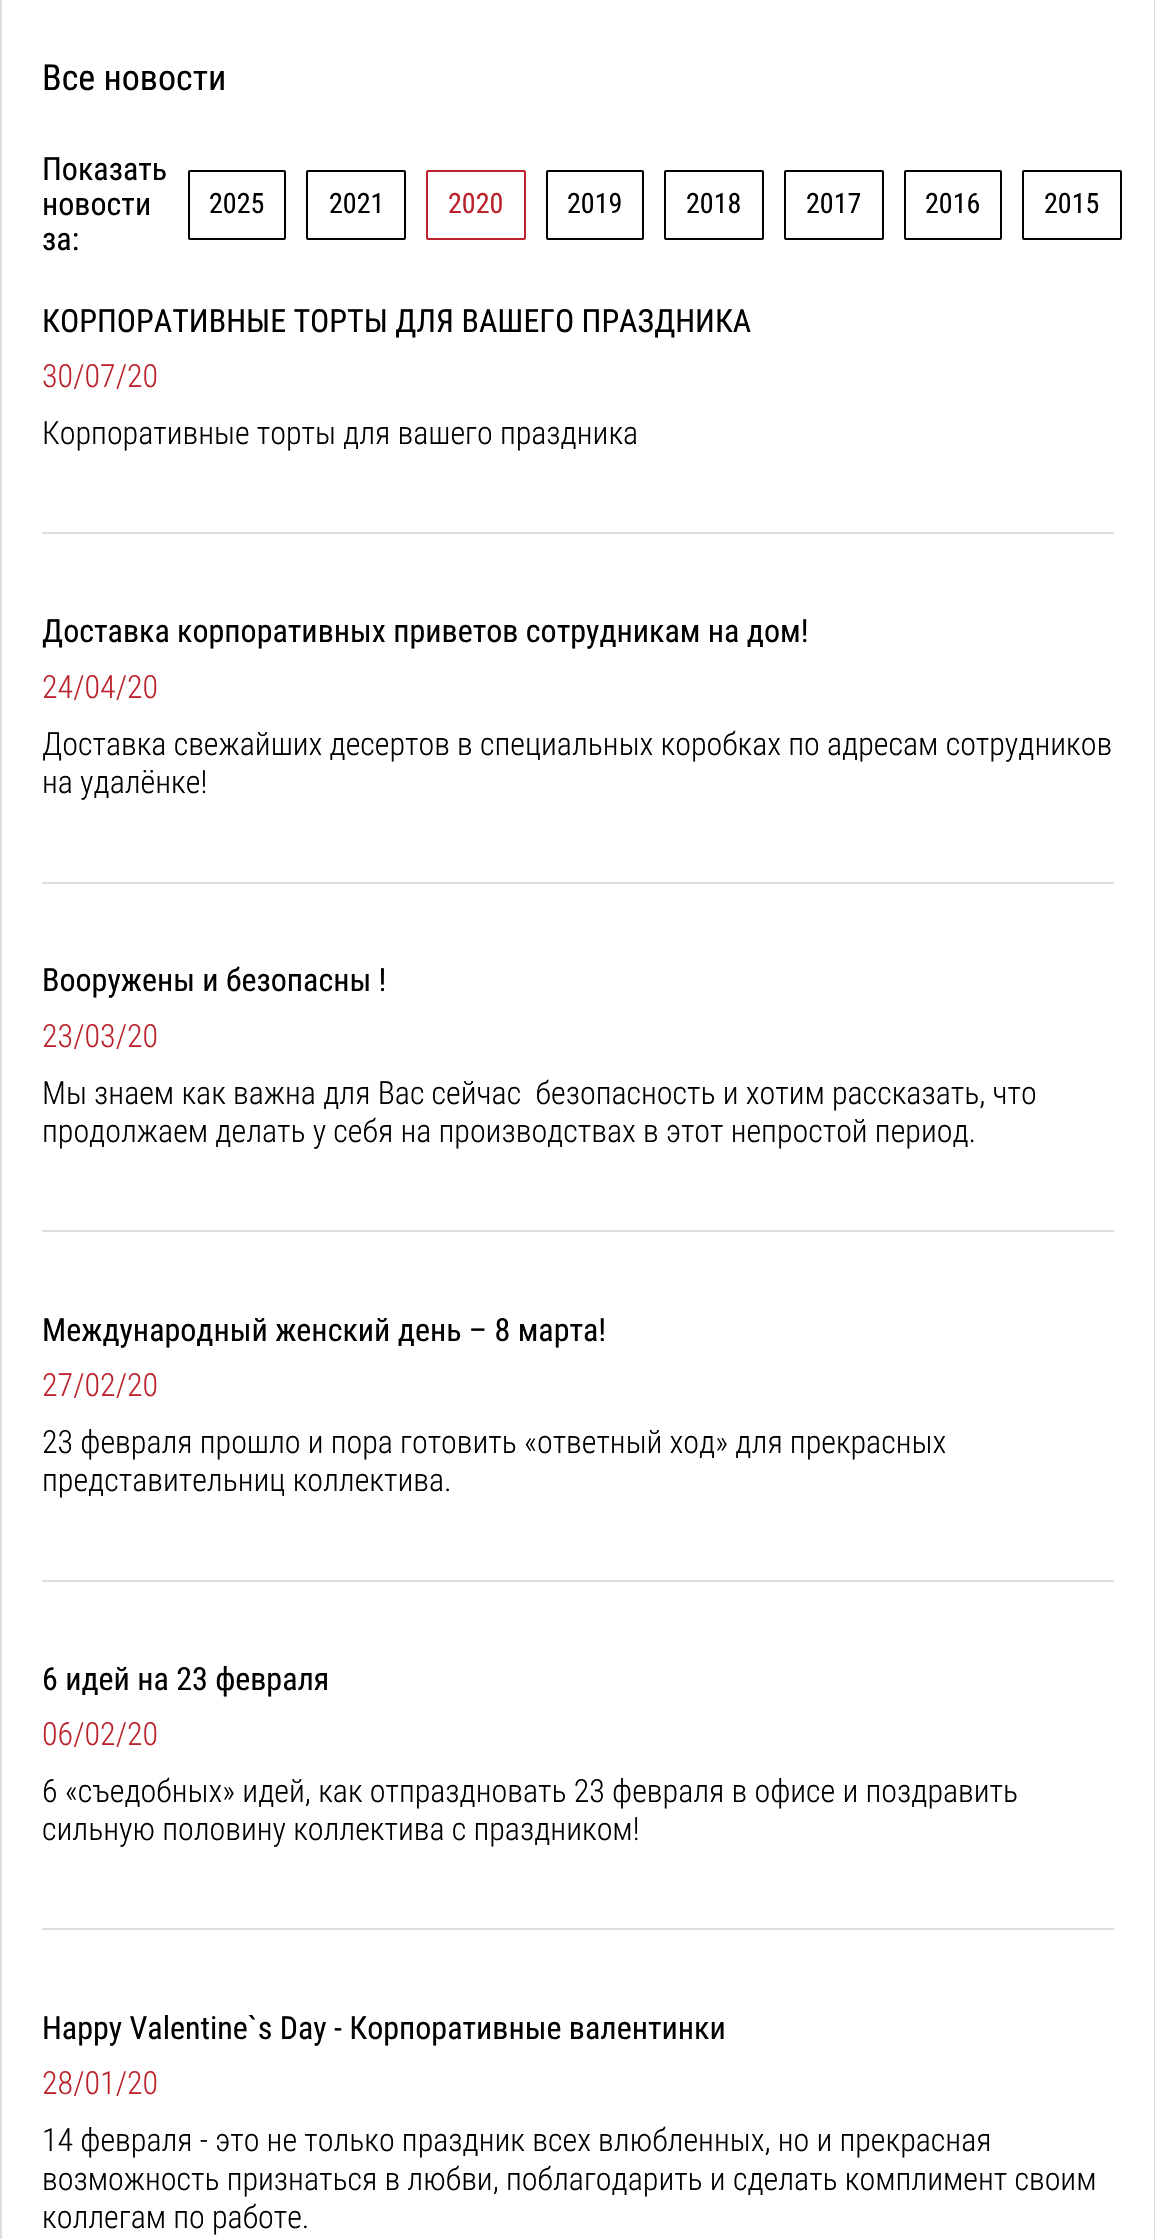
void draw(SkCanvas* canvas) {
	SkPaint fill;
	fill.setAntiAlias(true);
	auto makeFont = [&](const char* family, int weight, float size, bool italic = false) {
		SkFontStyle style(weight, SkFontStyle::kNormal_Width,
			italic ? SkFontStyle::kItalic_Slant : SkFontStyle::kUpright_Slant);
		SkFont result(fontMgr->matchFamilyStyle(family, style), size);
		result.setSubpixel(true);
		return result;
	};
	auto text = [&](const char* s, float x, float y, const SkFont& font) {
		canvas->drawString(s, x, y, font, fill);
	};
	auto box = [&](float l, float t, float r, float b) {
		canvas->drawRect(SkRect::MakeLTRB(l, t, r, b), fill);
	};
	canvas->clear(0xFFFFFFFF);
	fill.setStyle(SkPaint::kStroke_Style);
	fill.setStrokeWidth(2);
	fill.setColor(0xFFDDDDDD);
	canvas->drawRect(SkRect::MakeLTRB(1, -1, 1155, 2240), fill);
	fill.setColor(0xFF000000);
	canvas->drawRoundRect(SkRect::MakeLTRB(189, 171, 285, 239), 1, 1, fill);
	canvas->drawRoundRect(SkRect::MakeLTRB(307, 171, 405, 239), 1, 1, fill);
	fill.setColor(0xFFBB222B);
	canvas->drawRoundRect(SkRect::MakeLTRB(427, 171, 525, 239), 1, 1, fill);
	fill.setColor(0xFF000000);
	canvas->drawRoundRect(SkRect::MakeLTRB(547, 171, 643, 239), 1, 1, fill);
	canvas->drawRoundRect(SkRect::MakeLTRB(665, 171, 763, 239), 1, 1, fill);
	canvas->drawRoundRect(SkRect::MakeLTRB(785, 171, 883, 239), 1, 1, fill);
	canvas->drawRoundRect(SkRect::MakeLTRB(905, 171, 1001, 239), 1, 1, fill);
	canvas->drawRoundRect(SkRect::MakeLTRB(1023, 171, 1121, 239), 1, 1, fill);
	fill.setStyle(SkPaint::kFill_Style);
	fill.setColor(0xFFDDDDDD);
	box(42, 532, 1114, 534);
	box(42, 882, 1114, 884);
	box(42, 1230, 1114, 1232);
	box(42, 1580, 1114, 1582);
	box(42, 1928, 1114, 1930);
	auto font1 = makeFont("Roboto Condensed", 400, 36);
	fill.setColor(0xFF000000);
	text("Все новости", 42, 90, font1);
	auto font2 = makeFont("Roboto Condensed", 400, 32);
	text("Показать", 42, 180, font2);
	text("новости", 42, 215, font2);
	text("за:", 42, 250, font2);
	auto font3 = makeFont("Roboto Condensed", 400, 28);
	text("2025", 209, 213, font3);
	text("2021", 329, 213, font3);
	fill.setColor(0xFFBB222B);
	text("2020", 448, 213, font3);
	fill.setColor(0xFF000000);
	text("2019", 567, 213, font3);
	text("2018", 686, 213, font3);
	text("2017", 806, 213, font3);
	text("2016", 925, 213, font3);
	text("2015", 1044, 213, font3);
	text("КОРПОРАТИВНЫЕ ТОРТЫ ДЛЯ ВАШЕГО ПРАЗДНИКА", 42, 332, font2);
	auto font4 = makeFont("Roboto Condensed", 300, 32);
	fill.setColor(0xFFBB222B);
	text("30/07/20", 42, 387, font4);
	fill.setColor(0xFF000000);
	text("Корпоративные торты для вашего праздника", 42, 444, font4);
	text("Доставка корпоративных приветов сотрудникам на дом!", 42, 642, font2);
	fill.setColor(0xFFBB222B);
	text("24/04/20", 42, 698, font4);
	fill.setColor(0xFF000000);
	text("Доставка свежайших десертов в специальных коробках по адресам сотрудников", 42, 755, font4);
	text("на удалёнке!", 42, 793, font4);
	text("Вооружены и безопасны !", 42, 991, font2);
	fill.setColor(0xFFBB222B);
	text("23/03/20", 42, 1047, font4);
	fill.setColor(0xFF000000);
	text("Мы знаем как важна для Вас сейчас  безопасность и хотим рассказать, что", 42, 1104, font4);
	text("продолжаем делать у себя на производствах в этот непростой период.", 42, 1142, font4);
	text("Международный женский день – 8 марта!", 42, 1341, font2);
	fill.setColor(0xFFBB222B);
	text("27/02/20", 42, 1396, font4);
	fill.setColor(0xFF000000);
	text("23 февраля прошло и пора готовить «ответный ход» для прекрасных", 42, 1453, font4);
	text("представительниц коллектива.", 42, 1491, font4);
	text("6 идей на 23 февраля", 42, 1690, font2);
	fill.setColor(0xFFBB222B);
	text("06/02/20", 42, 1745, font4);
	fill.setColor(0xFF000000);
	text("6 «съедобных» идей, как отпраздновать 23 февраля в офисе и поздравить", 42, 1802, font4);
	text("сильную половину коллектива с праздником!", 42, 1840, font4);
	text("Happy Valentine`s Day - Корпоративные валентинки", 42, 2039, font2);
	fill.setColor(0xFFBB222B);
	text("28/01/20", 42, 2094, font4);
	fill.setColor(0xFF000000);
	text("14 февраля - это не только праздник всех влюбленных, но и прекрасная", 42, 2151, font4);
	text("возможность признаться в любви, поблагодарить и сделать комплимент своим", 42, 2190, font4);
	text("коллегам по работе.", 42, 2228, font4);
}
